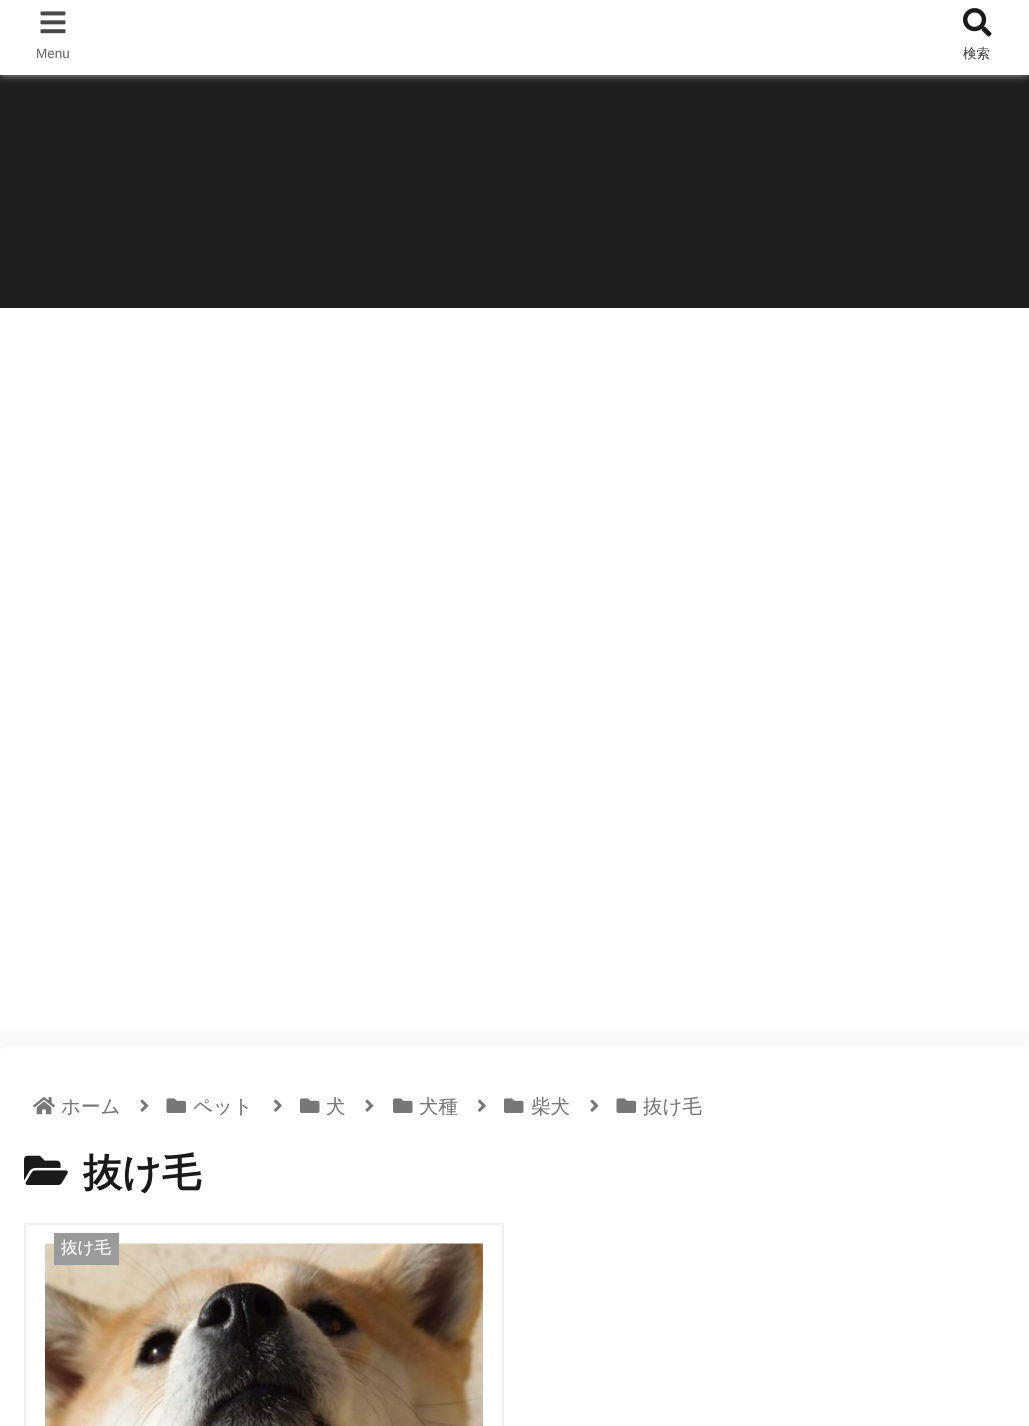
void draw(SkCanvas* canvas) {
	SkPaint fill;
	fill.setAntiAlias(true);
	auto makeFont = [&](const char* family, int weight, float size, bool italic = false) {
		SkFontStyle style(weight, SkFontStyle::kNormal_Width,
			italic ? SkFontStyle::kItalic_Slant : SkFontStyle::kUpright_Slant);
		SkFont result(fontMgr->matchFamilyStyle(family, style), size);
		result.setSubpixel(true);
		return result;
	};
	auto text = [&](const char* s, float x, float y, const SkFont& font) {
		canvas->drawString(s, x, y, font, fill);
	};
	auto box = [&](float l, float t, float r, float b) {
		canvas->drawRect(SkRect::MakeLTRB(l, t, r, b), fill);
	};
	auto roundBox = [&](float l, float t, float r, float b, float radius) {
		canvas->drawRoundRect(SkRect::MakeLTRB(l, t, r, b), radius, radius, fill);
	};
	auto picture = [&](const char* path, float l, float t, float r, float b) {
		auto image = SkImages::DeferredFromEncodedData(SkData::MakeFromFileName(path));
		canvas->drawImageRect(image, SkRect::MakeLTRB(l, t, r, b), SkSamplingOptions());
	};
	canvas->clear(0xFFFAFAFA);
	fill.setColor(0xFF1E1E1E);
	box(0, 75, 1029, 308);
	fill.setColor(0xFFA9A9A9);
	fill.setMaskFilter(SkMaskFilter::MakeBlur(kNormal_SkBlurStyle, 4));
	canvas->drawRect(SkRect::MakeLTRB(0, 0, 1029, 75), fill);
	fill.setMaskFilter(nullptr);
	fill.setColor(0xFFFFFFFF);
	box(0, 0, 1029, 75);
	picture("image0.png", 40, 11, 66, 34);
	picture("image1.png", 963, 8, 992, 37);
	box(0, 308, 1029, 1031);
	roundBox(0, 1046, 1029, 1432, 6);
	picture("image2.png", 33, 1097, 55, 1115);
	picture("image3.png", 140, 1099, 149, 1112);
	picture("image4.png", 166, 1098, 186, 1113);
	picture("image5.png", 274, 1099, 282, 1112);
	picture("image6.png", 300, 1098, 320, 1113);
	picture("image3.png", 365, 1099, 374, 1112);
	picture("image6.png", 393, 1098, 413, 1113);
	picture("image5.png", 478, 1099, 486, 1112);
	picture("image6.png", 504, 1098, 524, 1113);
	picture("image3.png", 590, 1099, 599, 1112);
	picture("image4.png", 616, 1098, 636, 1113);
	picture("image7.png", 24, 1155, 68, 1185);
	fill.setStyle(SkPaint::kStroke_Style);
	fill.setStrokeWidth(2);
	fill.setColor(0xFFEEEEEE);
	canvas->drawRect(SkRect::MakeLTRB(25, 1224, 503, 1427), fill);
	picture("image8.png", 45, 1243, 483, 1426);
	fill.setStyle(SkPaint::kFill_Style);
	fill.setColor(0xFF9B9B9B);
	box(54, 1233, 119, 1265);
	auto font1 = makeFont("Liberation Sans", 400, 13.5f);
	fill.setColor(0xFF6C6C6C);
	text("Menu", 36, 58, font1);
	auto font2 = makeFont("WenQuanYi Zen Hei", 500, 13.5f);
	fill.setColor(0xFF484848);
	text("検索", 963, 58, font2);
	auto font3 = makeFont("WenQuanYi Zen Hei", 500, 19.5f);
	fill.setColor(0xFF777777);
	text("ホーム", 61, 1113, font3);
	text("ペット", 193, 1113, font3);
	text("犬", 326, 1113, font3);
	text("犬種", 419, 1113, font3);
	text("柴犬", 531, 1113, font3);
	text("抜け毛", 643, 1113, font3);
	auto font4 = makeFont("WenQuanYi Zen Hei", 700, 39);
	fill.setColor(0xFF1A1A1A);
	text("抜け毛", 83, 1186, font4);
	auto font5 = makeFont("WenQuanYi Zen Hei", 500, 16.5f);
	fill.setColor(0xFFFFFFFF);
	text("抜け毛", 61, 1253, font5);
}
